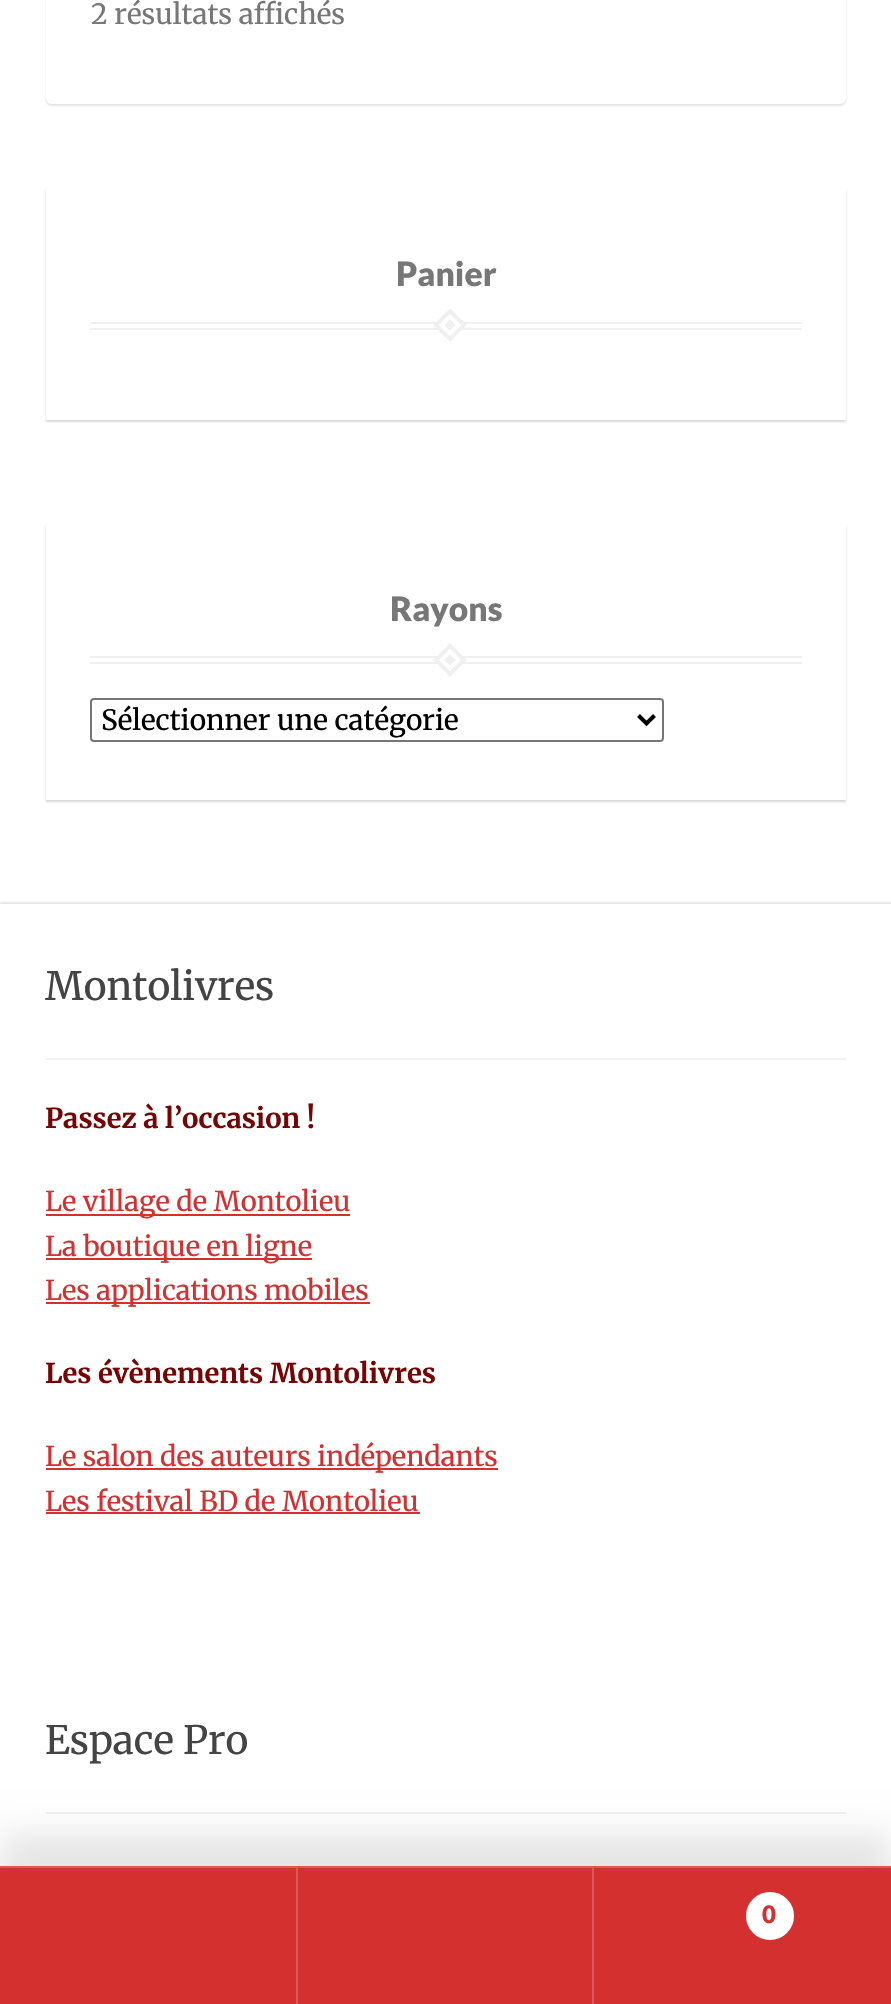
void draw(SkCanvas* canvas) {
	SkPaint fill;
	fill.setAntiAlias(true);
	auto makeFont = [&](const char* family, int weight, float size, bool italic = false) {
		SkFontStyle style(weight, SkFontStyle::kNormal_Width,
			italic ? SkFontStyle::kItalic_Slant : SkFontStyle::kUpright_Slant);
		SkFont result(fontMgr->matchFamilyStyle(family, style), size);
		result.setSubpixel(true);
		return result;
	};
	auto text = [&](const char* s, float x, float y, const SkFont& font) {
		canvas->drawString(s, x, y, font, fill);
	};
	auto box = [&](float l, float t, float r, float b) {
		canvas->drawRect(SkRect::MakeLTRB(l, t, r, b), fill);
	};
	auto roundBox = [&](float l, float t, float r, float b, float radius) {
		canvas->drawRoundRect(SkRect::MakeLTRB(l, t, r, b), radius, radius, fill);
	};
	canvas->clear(0xFFFFFFFF);
	fill.setColor(0x1A000000);
	fill.setMaskFilter(SkMaskFilter::MakeBlur(kNormal_SkBlurStyle, 1));
	canvas->drawRoundRect(SkRect::MakeLTRB(46, -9, 846, 106), 6, 6, fill);
	fill.setMaskFilter(nullptr);
	fill.setColor(0xFFFFFFFF);
	roundBox(46, -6, 846, 104, 6);
	canvas->save();
	canvas->clipPath(SkPathBuilder(SkPathFillType::kEvenOdd).moveTo(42, 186).lineTo(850, 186).lineTo(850, 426).lineTo(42, 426).close().moveTo(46, 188).lineTo(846, 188).lineTo(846, 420).lineTo(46, 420).close().detach(), true);
	fill.setColor(0x26000000);
	fill.setMaskFilter(SkMaskFilter::MakeBlur(kNormal_SkBlurStyle, 1));
	canvas->drawRect(SkRect::MakeLTRB(46, 190, 846, 422), fill);
	fill.setMaskFilter(nullptr);
	canvas->restore();
	fill.setColor(0xFFF0F0F0);
	box(90, 322, 802, 324);
	box(90, 328, 802, 330);
	fill.setStyle(SkPaint::kStroke_Style);
	fill.setStrokeWidth(4);
	canvas->drawPath(SkPathBuilder().moveTo(450, 311).lineTo(464, 325).lineTo(450, 339).lineTo(436, 325).close().detach(), fill);
	fill.setStyle(SkPaint::kFill_Style);
	canvas->drawPath(SkPathBuilder().moveTo(450, 313.5f).lineTo(461.5f, 325).lineTo(450, 336.5f).lineTo(438.5f, 325).close().detach(), fill);
	fill.setStyle(SkPaint::kStroke_Style);
	fill.setColor(0xFFFFFFFF);
	canvas->drawPath(SkPathBuilder().moveTo(450, 316.5f).lineTo(458.5f, 325).lineTo(450, 333.5f).lineTo(441.5f, 325).close().detach(), fill);
	canvas->save();
	canvas->clipPath(SkPathBuilder(SkPathFillType::kEvenOdd).moveTo(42, 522).lineTo(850, 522).lineTo(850, 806).lineTo(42, 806).close().moveTo(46, 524).lineTo(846, 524).lineTo(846, 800).lineTo(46, 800).close().detach(), true);
	fill.setStyle(SkPaint::kFill_Style);
	fill.setColor(0x26000000);
	fill.setMaskFilter(SkMaskFilter::MakeBlur(kNormal_SkBlurStyle, 1));
	canvas->drawRect(SkRect::MakeLTRB(46, 526, 846, 802), fill);
	fill.setMaskFilter(nullptr);
	canvas->restore();
	fill.setColor(0xFFF0F0F0);
	box(90, 656, 802, 658);
	box(90, 662, 802, 664);
	fill.setStyle(SkPaint::kStroke_Style);
	canvas->drawPath(SkPathBuilder().moveTo(450, 646).lineTo(464, 660).lineTo(450, 674).lineTo(436, 660).close().detach(), fill);
	fill.setStyle(SkPaint::kFill_Style);
	canvas->drawPath(SkPathBuilder().moveTo(450, 648.5f).lineTo(461.5f, 660).lineTo(450, 671.5f).lineTo(438.5f, 660).close().detach(), fill);
	fill.setStyle(SkPaint::kStroke_Style);
	fill.setColor(0xFFFFFFFF);
	canvas->drawPath(SkPathBuilder().moveTo(450, 651.5f).lineTo(458.5f, 660).lineTo(450, 668.5f).lineTo(441.5f, 660).close().detach(), fill);
	fill.setStrokeWidth(2);
	fill.setColor(0xFF767676);
	canvas->drawRoundRect(SkRect::MakeLTRB(91, 699, 663, 741), 3, 3, fill);
	fill.setStrokeWidth(4);
	fill.setColor(0xFF000000);
	canvas->drawPath(SkPathBuilder().moveTo(638.5f, 715.5f).lineTo(646.5f, 723.5f).lineTo(654.5f, 715.5f).detach(), fill);
	canvas->save();
	canvas->clipRect(SkRect::MakeLTRB(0, 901, 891, 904));
	fill.setStyle(SkPaint::kFill_Style);
	fill.setColor(0x1A000000);
	fill.setMaskFilter(SkMaskFilter::MakeBlur(kNormal_SkBlurStyle, 1));
	canvas->drawRect(SkRect::MakeLTRB(0, 902, 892, 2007), fill);
	fill.setMaskFilter(nullptr);
	canvas->restore();
	fill.setColor(0xFFF2F2F2);
	box(46, 1058, 846, 1060);
	fill.setColor(0xFFD53030);
	box(46, 1214, 350, 1216);
	box(46, 1258, 312, 1260);
	box(46, 1302, 370, 1304);
	box(46, 1468, 498, 1470);
	box(46, 1512, 420, 1514);
	fill.setColor(0xFFF2F2F2);
	box(46, 1812, 846, 1814);
	fill.setColor(0x1A000000);
	fill.setMaskFilter(SkMaskFilter::MakeBlur(kNormal_SkBlurStyle, 16));
	canvas->drawRect(SkRect::MakeLTRB(0, 1834, 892, 1972), fill);
	fill.setMaskFilter(nullptr);
	fill.setColor(0xFFDD5959);
	box(0, 1866, 891, 1868);
	fill.setColor(0xFFD53030);
	box(0, 1868, 296, 2004);
	fill.setColor(0xFFDD5959);
	box(296, 1868, 298, 2004);
	fill.setColor(0xFFD53030);
	box(298, 1868, 592, 2004);
	fill.setColor(0xFFDD5959);
	box(592, 1868, 594, 2004);
	fill.setColor(0xFFD53030);
	box(594, 1868, 891, 2004);
	fill.setColor(0xFFFFFFFF);
	canvas->drawCircle(770, 1916, 25, fill);
	fill.setStyle(SkPaint::kStroke_Style);
	fill.setStrokeWidth(2);
	fill.setColor(0xFFD53030);
	canvas->drawCircle(770, 1916, 25, fill);
	auto font1 = makeFont("Merriweather", 400, 28);
	fill.setStyle(SkPaint::kFill_Style);
	fill.setColor(0xFF777777);
	text("2 résultats affichés", 91, 24, font1);
	auto font2 = makeFont("Lato", 900, 33.5f);
	text("Panier", 396, 286, font2);
	text("Rayons", 390, 621, font2);
	fill.setColor(0xFF000000);
	text("Sélectionner une catégorie", 101, 730, font1);
	auto font3 = makeFont("Merriweather", 400, 39);
	fill.setColor(0xFF444444);
	text("Montolivres", 45, 1000, font3);
	auto font4 = makeFont("Merriweather", 700, 27.4f);
	fill.setColor(0xFF770303);
	text("Passez à l’occasion !", 45, 1128, font4);
	auto font5 = makeFont("Merriweather", 400, 27.4f);
	fill.setColor(0xFFD53030);
	text("Le village de Montolieu", 45, 1211, font5);
	text("La boutique en ligne", 45, 1256, font5);
	text("Les applications mobiles", 45, 1300, font5);
	fill.setColor(0xFF770303);
	text("Les évènements Montolivres", 45, 1383, font4);
	fill.setColor(0xFFD53030);
	text("Le salon des auteurs indépendants", 45, 1466, font5);
	text("Les festival BD de Montolieu", 45, 1511, font5);
	fill.setColor(0xFF444444);
	text("Espace Pro", 45, 1754, font3);
	auto font6 = makeFont("Lato", 900, 24);
	fill.setColor(0xFFD53030);
	text("0", 762, 1923, font6);
}
